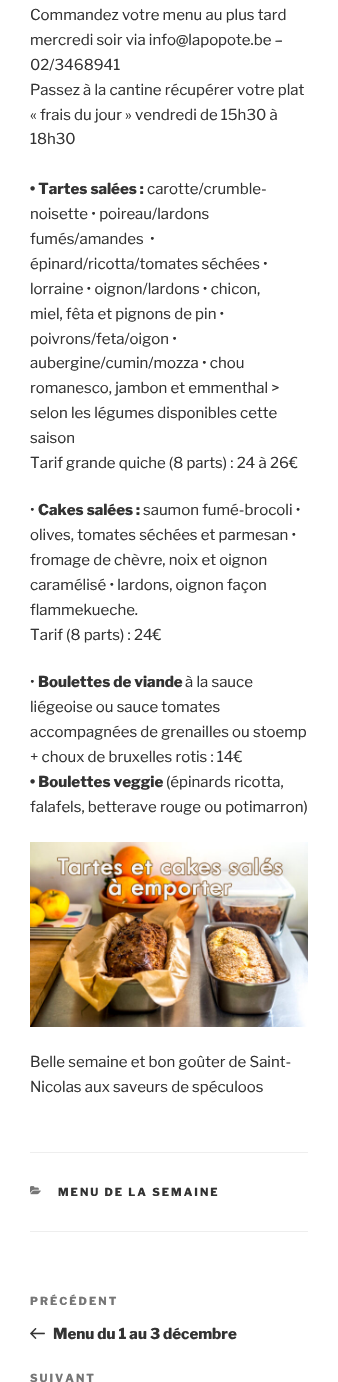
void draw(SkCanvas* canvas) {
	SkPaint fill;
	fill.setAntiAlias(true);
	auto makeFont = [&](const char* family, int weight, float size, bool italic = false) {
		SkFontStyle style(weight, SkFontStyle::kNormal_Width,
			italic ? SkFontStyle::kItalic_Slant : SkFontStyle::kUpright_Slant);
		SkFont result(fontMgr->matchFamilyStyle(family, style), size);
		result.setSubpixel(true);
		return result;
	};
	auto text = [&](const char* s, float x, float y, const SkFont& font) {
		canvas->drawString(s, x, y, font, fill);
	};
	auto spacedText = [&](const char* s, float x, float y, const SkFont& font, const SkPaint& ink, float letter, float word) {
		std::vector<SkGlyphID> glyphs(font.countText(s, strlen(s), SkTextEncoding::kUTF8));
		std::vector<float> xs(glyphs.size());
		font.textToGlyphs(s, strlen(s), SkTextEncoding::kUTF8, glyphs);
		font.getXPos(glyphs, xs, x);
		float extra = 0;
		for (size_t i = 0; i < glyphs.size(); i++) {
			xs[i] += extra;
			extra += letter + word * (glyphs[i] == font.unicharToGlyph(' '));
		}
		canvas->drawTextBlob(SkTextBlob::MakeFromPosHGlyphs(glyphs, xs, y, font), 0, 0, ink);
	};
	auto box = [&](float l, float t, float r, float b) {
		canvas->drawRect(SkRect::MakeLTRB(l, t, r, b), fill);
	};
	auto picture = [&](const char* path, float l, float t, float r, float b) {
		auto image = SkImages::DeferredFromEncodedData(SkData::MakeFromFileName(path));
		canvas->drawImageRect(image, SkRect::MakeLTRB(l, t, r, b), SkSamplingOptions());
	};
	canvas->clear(0xFFFFFFFF);
	picture("image0.png", 30, 842, 308, 1027);
	fill.setColor(0xFFEEEEEE);
	box(30, 1152, 308, 1153);
	box(30, 1231, 308, 1232);
	picture("image1.png", 30, 1186, 41, 1195);
	picture("image2.png", 30, 1328, 45, 1339);
	auto font1 = makeFont("Libre Franklin", 100, 15);
	fill.setColor(0xFF333333);
	text("Commandez votre menu au plus tard", 30, 20, font1);
	text("mercredi soir via info@lapopote.be –", 30, 45, font1);
	text("02/3468941", 30, 70, font1);
	text("Passez à la cantine récupérer votre plat", 30, 95, font1);
	text("« frais du jour » vendredi de 15h30 à", 30, 120, font1);
	text("18h30", 30, 144, font1);
	auto font2 = makeFont("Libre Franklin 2", 100, 15);
	text("• Tartes salées :", 30, 194, font2);
	text("carotte/crumble-", 147, 194, font1);
	text("noisette • poireau/lardons", 30, 219, font1);
	text("fumés/amandes  •", 30, 244, font1);
	text("épinard/ricotta/tomates séchées •", 30, 269, font1);
	text("lorraine • oignon/lardons • chicon,", 30, 294, font1);
	text("miel, fêta et pignons de pin •", 30, 319, font1);
	text("poivrons/feta/oigon •", 30, 344, font1);
	text("aubergine/cumin/mozza • chou", 30, 368, font1);
	text("romanesco, jambon et emmenthal >", 30, 393, font1);
	text("selon les légumes disponibles cette", 30, 418, font1);
	text("saison", 30, 443, font1);
	text("Tarif grande quiche (8 parts) : 24 à 26€", 30, 468, font1);
	text("•", 30, 515, font1);
	text("Cakes salées :", 38, 515, font2);
	text("saumon fumé-brocoli •", 143, 515, font1);
	text("olives, tomates séchées et parmesan •", 30, 540, font1);
	text("fromage de chèvre, noix et oignon", 30, 565, font1);
	text("caramélisé • lardons, oignon façon", 30, 590, font1);
	text("flammekueche.", 30, 615, font1);
	text("Tarif (8 parts) : 24€", 30, 640, font1);
	text("•", 30, 687, font1);
	text("Boulettes de viande", 38, 687, font2);
	text("à la sauce", 185, 687, font1);
	text("liégeoise ou sauce tomates", 30, 712, font1);
	text("accompagnées de grenailles ou stoemp", 30, 737, font1);
	text("+ choux de bruxelles rotis : 14€", 30, 762, font1);
	text("• Boulettes veggie", 30, 787, font2);
	text("(épinards ricotta,", 166, 787, font1);
	text("falafels, betterave rouge ou potimarron)", 30, 812, font1);
	text("Belle semaine et bon goûter de Saint-", 30, 1067, font1);
	text("Nicolas aux saveurs de spéculoos", 30, 1092, font1);
	auto font3 = makeFont("Libre Franklin 2", 100, 11);
	spacedText("MENU DE LA SEMAINE", 58, 1196, font3, fill, 2, 0);
	fill.setColor(0xFF767676);
	spacedText("PRÉCÉDENT", 30, 1305, font3, fill, 2, 0);
	fill.setColor(0xFF333333);
	text("Menu du 1 au 3 décembre", 53, 1339, font2);
	fill.setColor(0xFF767676);
	spacedText("SUIVANT", 30, 1382, font3, fill, 2, 0);
}
